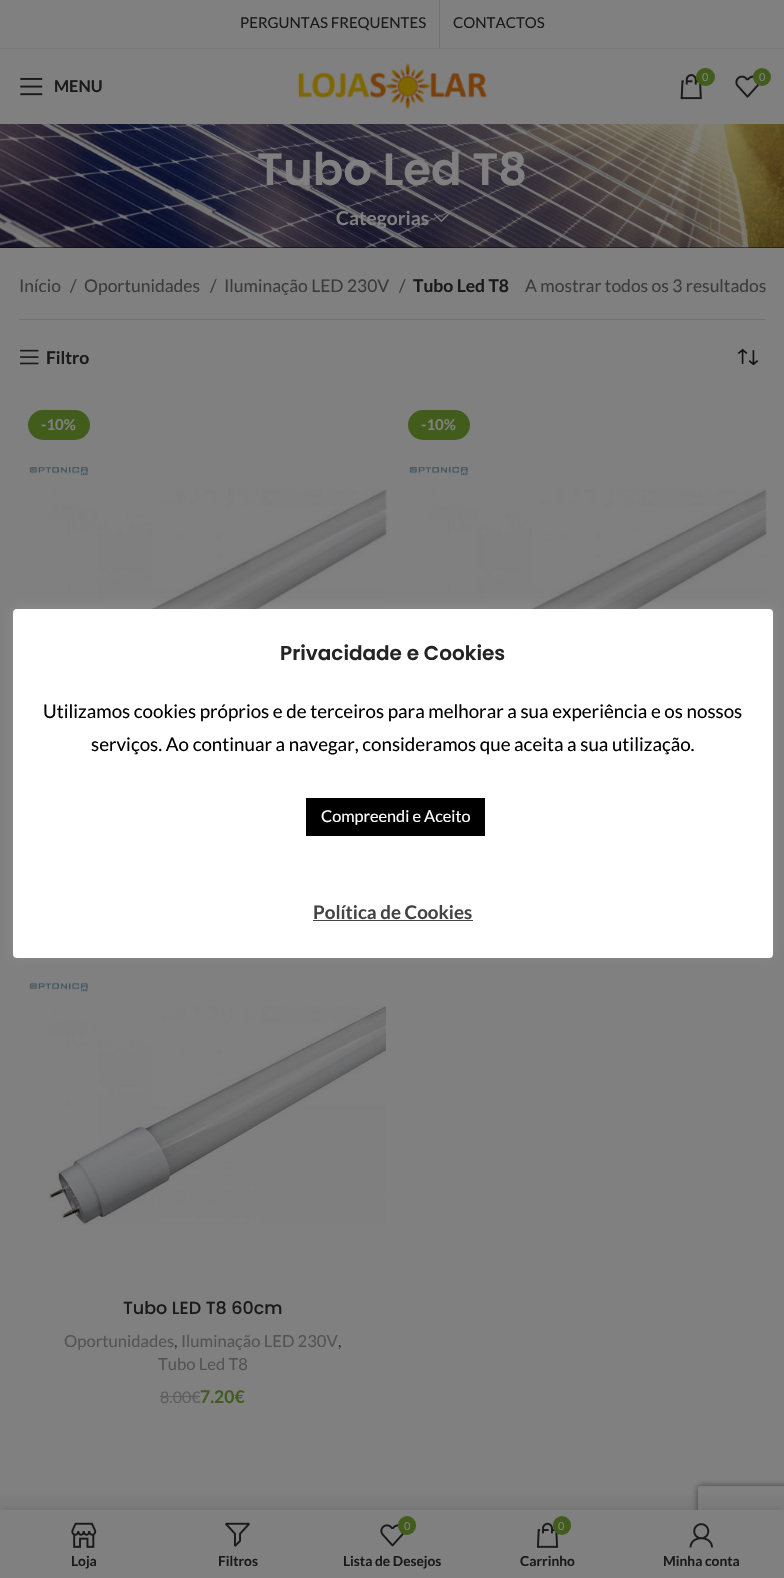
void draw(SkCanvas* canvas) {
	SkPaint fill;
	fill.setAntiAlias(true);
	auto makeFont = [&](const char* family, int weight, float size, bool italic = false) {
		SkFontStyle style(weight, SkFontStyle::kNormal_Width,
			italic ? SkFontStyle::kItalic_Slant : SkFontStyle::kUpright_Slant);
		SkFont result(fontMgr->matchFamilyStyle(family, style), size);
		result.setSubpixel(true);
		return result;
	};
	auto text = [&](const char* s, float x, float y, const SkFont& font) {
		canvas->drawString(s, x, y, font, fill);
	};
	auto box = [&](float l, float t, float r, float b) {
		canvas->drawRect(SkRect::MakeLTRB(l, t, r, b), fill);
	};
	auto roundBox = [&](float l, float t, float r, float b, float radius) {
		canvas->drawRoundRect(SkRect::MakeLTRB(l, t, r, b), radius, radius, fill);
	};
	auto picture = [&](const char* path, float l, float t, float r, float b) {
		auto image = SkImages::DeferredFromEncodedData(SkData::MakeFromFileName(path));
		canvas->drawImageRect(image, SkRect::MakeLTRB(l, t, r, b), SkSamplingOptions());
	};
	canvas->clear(0xFF808080);
	fill.setColor(0xFF797979);
	box(0, 48, 784, 49);
	fill.setColor(0xFF727272);
	box(439, 0, 440, 48);
	picture("image0.png", 298, 63, 487, 110);
	picture("image1.png", 680, 74, 702, 100);
	fill.setColor(0xFF425C1B);
	roundBox(696, 68, 715, 86, 9);
	picture("image2.png", 735, 75, 759, 98);
	canvas->drawCircle(762, 77, 9, fill);
	picture("image3.png", 20, 77, 43, 96);
	fill.setColor(0xFF050505);
	box(0, 247, 784, 248);
	picture("image4.png", 0, 124, 784, 248);
	picture("image5.png", 433, 213, 449, 222);
	fill.setColor(0xFF727272);
	box(19, 319, 766, 320);
	picture("image6.png", 20, 349, 39, 365);
	picture("image7.png", 737, 348, 759, 366);
	fill.setColor(0xFF425C1B);
	roundBox(28, 410, 90, 440, 15);
	picture("image8.png", 29, 467, 88, 476);
	picture("image9.png", 48, 489, 387, 609);
	roundBox(408, 410, 470, 440, 15);
	picture("image10.png", 409, 467, 468, 476);
	picture("image11.png", 428, 489, 767, 609);
	picture("image12.png", 29, 983, 88, 992);
	picture("image13.png", 48, 1006, 386, 1225);
	fill.setColor(0xFF5E5E5E);
	box(160, 1396, 200, 1397);
	fill.setColor(0xFF7D7D7D);
	box(0, 1496, 784, 1510);
	fill.setColor(0x4DACABAB);
	fill.setMaskFilter(SkMaskFilter::MakeBlur(kNormal_SkBlurStyle, 6));
	canvas->drawRoundRect(SkRect::MakeLTRB(13, 608, 773, 956), 4, 4, fill);
	fill.setMaskFilter(nullptr);
	fill.setColor(0xFFFFFFFF);
	roundBox(13, 609, 773, 958, 4);
	fill.setColor(0xFF000000);
	box(306, 798, 485, 836);
	fill.setColor(0xFF444444);
	box(313, 920, 473, 921);
	canvas->save();
	canvas->clipPath(SkPathBuilder(SkPathFillType::kEvenOdd).moveTo(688, 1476).lineTo(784, 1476).lineTo(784, 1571).lineTo(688, 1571).close().moveTo(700.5f, 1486).lineTo(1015.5f, 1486).cubicTo(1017, 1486, 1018, 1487, 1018, 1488.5f).lineTo(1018, 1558.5f).cubicTo(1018, 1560, 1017, 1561, 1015.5f, 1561).lineTo(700.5f, 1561).cubicTo(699, 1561, 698, 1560, 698, 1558.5f).lineTo(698, 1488.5f).cubicTo(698, 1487, 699, 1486, 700.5f, 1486).close().detach(), true);
	fill.setColor(0xFF404040);
	fill.setMaskFilter(SkMaskFilter::MakeBlur(kNormal_SkBlurStyle, 3));
	canvas->drawRoundRect(SkRect::MakeLTRB(698, 1486, 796, 1561), 2.5f, 2.5f, fill);
	fill.setMaskFilter(nullptr);
	canvas->restore();
	fill.setColor(0x1F000000);
	fill.setMaskFilter(SkMaskFilter::MakeBlur(kNormal_SkBlurStyle, 5.5f));
	canvas->drawRect(SkRect::MakeLTRB(0, 1510, 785, 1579), fill);
	fill.setMaskFilter(nullptr);
	fill.setColor(0xFF808080);
	box(0, 1510, 784, 1578);
	picture("image14.png", 71, 1522, 97, 1548);
	picture("image15.png", 225, 1522, 250, 1547);
	picture("image16.png", 380, 1524, 404, 1547);
	fill.setColor(0xFF425C1B);
	roundBox(398, 1516, 416, 1535, 9);
	picture("image17.png", 536, 1522, 559, 1548);
	roundBox(553, 1516, 571, 1535, 9);
	picture("image18.png", 689, 1523, 713, 1548);
	auto font1 = makeFont("Lato", 400, 15);
	fill.setColor(0xFF1A1A1A);
	text("PERGUNTAS FREQUENTES", 240, 28, font1);
	text("CONTACTOS", 453, 28, font1);
	auto font2 = makeFont("Lato", 400, 11);
	fill.setColor(0xFF808080);
	text("0", 702, 81, font2);
	text("0", 759, 81, font2);
	auto font3 = makeFont("Lato", 700, 16.25f);
	fill.setColor(0xFF1A1A1A);
	text("MENU", 54, 92, font3);
	auto font4 = makeFont("Poppins", 600, 45);
	fill.setColor(0xFF808080);
	text("Tubo Led T8", 257, 185, font4);
	auto font5 = makeFont("Lato", 700, 19.25f);
	text("Categorias", 336, 225, font5);
	auto font6 = makeFont("Lato", 400, 17.5f);
	fill.setColor(0xFF3B3B3B);
	text("Início", 19, 292, font6);
	text("/", 70, 292, font6);
	text("Oportunidades", 84, 292, font6);
	text("/", 210, 292, font6);
	text("Iluminação LED 230V", 224, 292, font6);
	text("/", 399, 292, font6);
	auto font7 = makeFont("Lato", 700, 17.5f);
	fill.setColor(0xFF1A1A1A);
	text("Tubo Led T8", 413, 292, font7);
	fill.setColor(0xFF3B3B3B);
	text("A mostrar todos os 3 resultados", 525, 292, font6);
	fill.setColor(0xFF1A1A1A);
	text("Filtro", 46, 364, font7);
	auto font8 = makeFont("Lato", 700, 15);
	fill.setColor(0xFF808080);
	text("-10%", 41, 430, font8);
	text("-10%", 421, 430, font8);
	auto font9 = makeFont("Poppins", 500, 17.5f);
	fill.setColor(0xFF1A1A1A);
	text("Tubo LED T8 60cm", 123, 1314, font9);
	auto font10 = makeFont("Lato", 400, 16.6f);
	fill.setColor(0xFF535353);
	text("Oportunidades", 64, 1347, font10);
	fill.setColor(0xFF3B3B3B);
	text(",", 174, 1347, font10);
	fill.setColor(0xFF535353);
	text("Iluminação LED 230V", 181, 1347, font10);
	fill.setColor(0xFF3B3B3B);
	text(",", 338, 1347, font10);
	fill.setColor(0xFF535353);
	text("Tubo Led T8", 158, 1370, font10);
	auto font11 = makeFont("Lato", 400, 16);
	fill.setColor(0xFF5E5E5E);
	text("8.00€", 160, 1403, font11);
	fill.setColor(0xFF425C1B);
	text("7.20€", 200, 1403, font7);
	auto font12 = makeFont("Poppins", 600, 20);
	fill.setColor(0xFF242424);
	text("Privacidade e Cookies", 280, 660, font12);
	auto font13 = makeFont("Lato", 400, 18.75f);
	fill.setColor(0xFF000000);
	text("Utilizamos cookies próprios e de terceiros para melhorar a sua experiência e os nossos", 43, 718, font13);
	text("serviços. Ao continuar a navegar, consideramos que aceita a sua utilização.", 91, 751, font13);
	auto font14 = makeFont("Lato", 400, 16.25f);
	fill.setColor(0xFFFFFFFF);
	text("Compreendi e Aceito", 321, 822, font14);
	auto font15 = makeFont("Lato", 700, 18.75f);
	fill.setColor(0xFF444444);
	text("Política de Cookies", 313, 919, font15);
	auto font16 = makeFont("Lato", 700, 13.75f);
	fill.setColor(0xFF1A1A1A);
	text("Loja", 71, 1566, font16);
	text("Filtros", 218, 1566, font16);
	fill.setColor(0xFF808080);
	text("0", 404, 1530, font2);
	fill.setColor(0xFF1A1A1A);
	text("Lista de Desejos", 343, 1566, font16);
	fill.setColor(0xFF808080);
	text("0", 558, 1530, font2);
	fill.setColor(0xFF1A1A1A);
	text("Carrinho", 520, 1566, font16);
	text("Minha conta", 663, 1566, font16);
}
